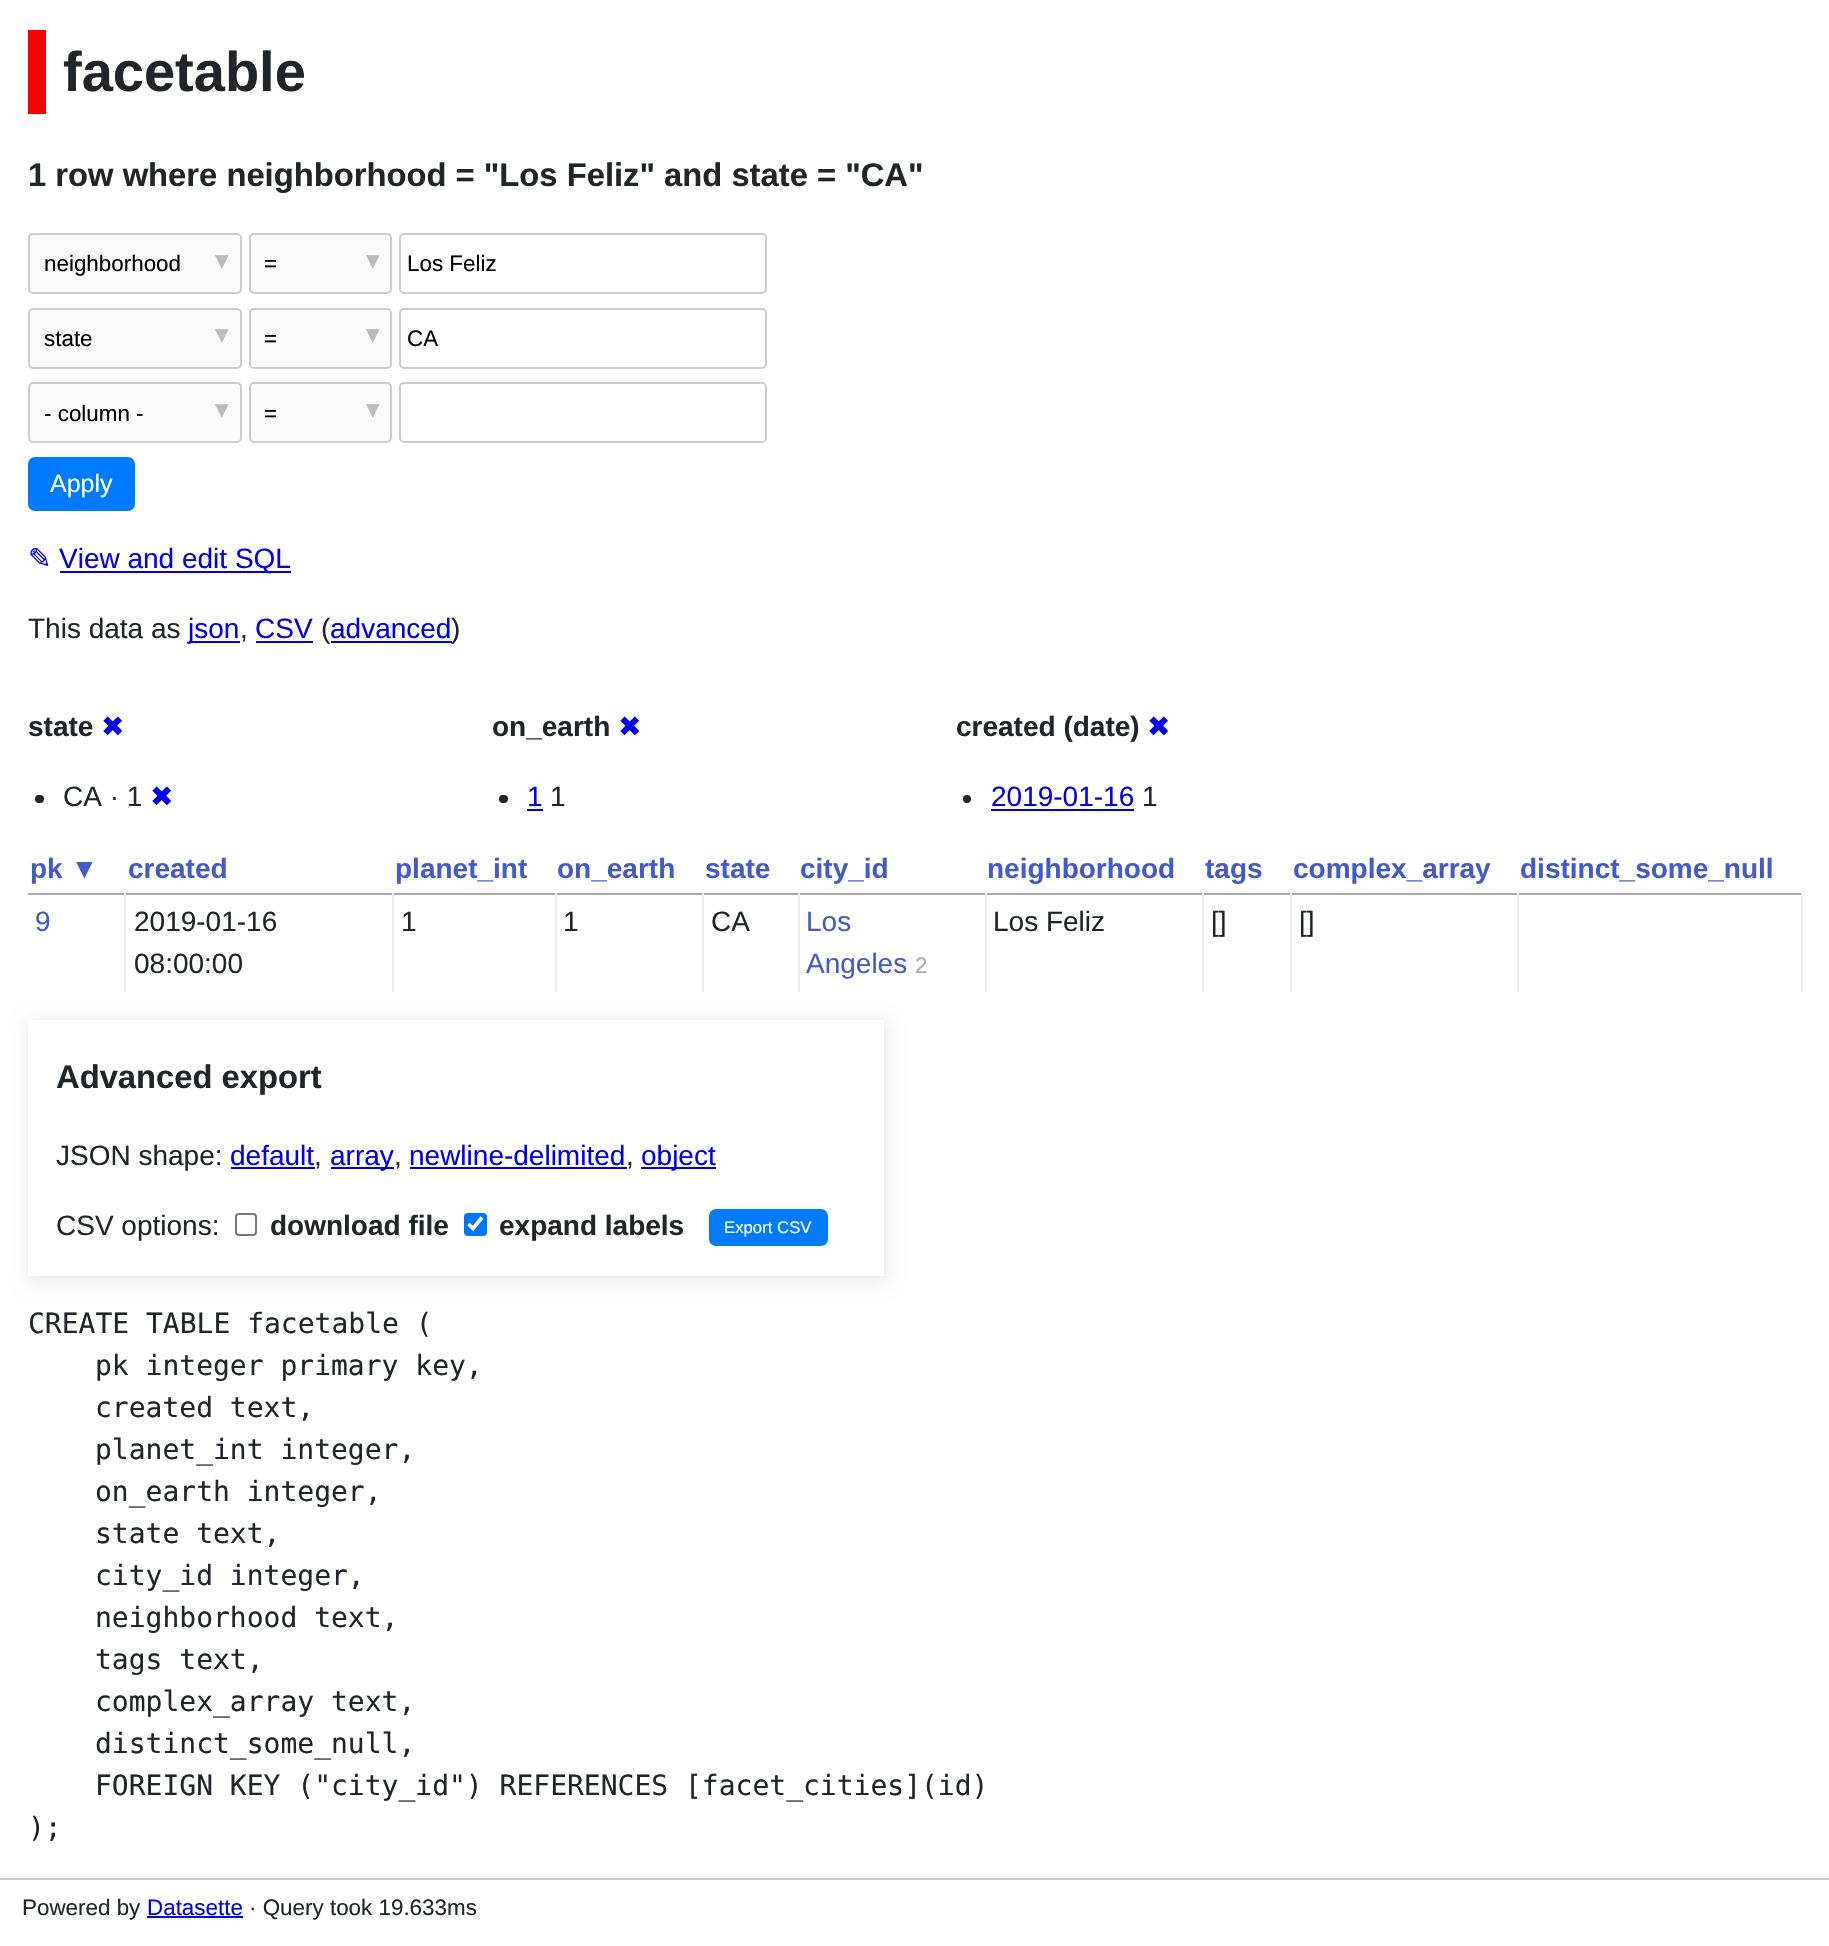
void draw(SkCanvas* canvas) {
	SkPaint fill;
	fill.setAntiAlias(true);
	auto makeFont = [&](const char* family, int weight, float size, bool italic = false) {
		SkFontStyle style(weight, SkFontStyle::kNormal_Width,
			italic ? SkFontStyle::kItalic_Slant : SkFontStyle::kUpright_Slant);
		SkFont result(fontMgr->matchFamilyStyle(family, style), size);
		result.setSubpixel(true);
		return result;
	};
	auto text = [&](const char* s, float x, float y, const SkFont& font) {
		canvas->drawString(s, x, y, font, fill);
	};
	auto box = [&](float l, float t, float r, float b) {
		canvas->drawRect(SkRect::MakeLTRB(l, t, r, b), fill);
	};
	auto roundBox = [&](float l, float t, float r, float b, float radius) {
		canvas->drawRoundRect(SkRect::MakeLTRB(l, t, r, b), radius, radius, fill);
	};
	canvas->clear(0xFFFFFFFF);
	fill.setColor(0xFFFF0000);
	box(28, 30, 46, 114);
	fill.setColor(0xFFFAFAFA);
	canvas->drawRoundRect(SkRect::MakeLTRB(29, 234, 241, 293), 4, 4, fill);
	fill.setStyle(SkPaint::kStroke_Style);
	fill.setStrokeWidth(2);
	fill.setColor(0xFFCCCCCC);
	canvas->drawRoundRect(SkRect::MakeLTRB(29, 234, 241, 293), 4, 4, fill);
	fill.setStyle(SkPaint::kFill_Style);
	fill.setColor(0xFFFAFAFA);
	canvas->drawRoundRect(SkRect::MakeLTRB(250, 234, 391, 293), 4, 4, fill);
	fill.setStyle(SkPaint::kStroke_Style);
	fill.setColor(0xFFCCCCCC);
	canvas->drawRoundRect(SkRect::MakeLTRB(250, 234, 391, 293), 4, 4, fill);
	canvas->drawRoundRect(SkRect::MakeLTRB(400, 234, 766, 293), 4, 4, fill);
	fill.setStyle(SkPaint::kFill_Style);
	fill.setColor(0xFFFAFAFA);
	canvas->drawRoundRect(SkRect::MakeLTRB(29, 309, 241, 368), 4, 4, fill);
	fill.setStyle(SkPaint::kStroke_Style);
	fill.setColor(0xFFCCCCCC);
	canvas->drawRoundRect(SkRect::MakeLTRB(29, 309, 241, 368), 4, 4, fill);
	fill.setStyle(SkPaint::kFill_Style);
	fill.setColor(0xFFFAFAFA);
	canvas->drawRoundRect(SkRect::MakeLTRB(250, 309, 391, 368), 4, 4, fill);
	fill.setStyle(SkPaint::kStroke_Style);
	fill.setColor(0xFFCCCCCC);
	canvas->drawRoundRect(SkRect::MakeLTRB(250, 309, 391, 368), 4, 4, fill);
	canvas->drawRoundRect(SkRect::MakeLTRB(400, 309, 766, 368), 4, 4, fill);
	fill.setStyle(SkPaint::kFill_Style);
	fill.setColor(0xFFFAFAFA);
	canvas->drawRoundRect(SkRect::MakeLTRB(29, 383, 241, 442), 4, 4, fill);
	fill.setStyle(SkPaint::kStroke_Style);
	fill.setColor(0xFFCCCCCC);
	canvas->drawRoundRect(SkRect::MakeLTRB(29, 383, 241, 442), 4, 4, fill);
	fill.setStyle(SkPaint::kFill_Style);
	fill.setColor(0xFFFAFAFA);
	canvas->drawRoundRect(SkRect::MakeLTRB(250, 383, 391, 442), 4, 4, fill);
	fill.setStyle(SkPaint::kStroke_Style);
	fill.setColor(0xFFCCCCCC);
	canvas->drawRoundRect(SkRect::MakeLTRB(250, 383, 391, 442), 4, 4, fill);
	canvas->drawRoundRect(SkRect::MakeLTRB(400, 383, 766, 442), 4, 4, fill);
	fill.setStyle(SkPaint::kFill_Style);
	fill.setColor(0xFF007BFF);
	canvas->drawRoundRect(SkRect::MakeLTRB(29, 458, 134, 510), 6, 6, fill);
	fill.setStyle(SkPaint::kStroke_Style);
	canvas->drawRoundRect(SkRect::MakeLTRB(29, 458, 134, 510), 6, 6, fill);
	fill.setStyle(SkPaint::kFill_Style);
	fill.setColor(0xFF0000EE);
	box(60, 571, 291, 573);
	box(189, 641, 240, 643);
	box(256, 641, 313, 643);
	box(331, 641, 452, 643);
	fill.setColor(0xFF212529);
	roundBox(35, 795, 44, 803, 4);
	roundBox(499, 795, 508, 803, 4);
	fill.setColor(0xFF0000EE);
	box(527, 809, 543, 811);
	fill.setColor(0xFF212529);
	canvas->drawCircle(967, 799, 4, fill);
	fill.setColor(0xFF0000EE);
	box(991, 809, 1134, 811);
	fill.setColor(0xFFAAAAAA);
	box(28, 893, 1803, 895);
	fill.setColor(0xFFEEEEEE);
	box(1801, 893, 1803, 992);
	box(124, 893, 126, 992);
	box(392, 893, 394, 992);
	box(555, 893, 557, 992);
	box(702, 893, 704, 992);
	box(798, 893, 800, 992);
	box(985, 893, 987, 992);
	box(1202, 893, 1204, 992);
	box(1290, 893, 1292, 992);
	box(1517, 893, 1519, 992);
	canvas->save();
	canvas->clipPath(SkPathBuilder(SkPathFillType::kEvenOdd).moveTo(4, 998).lineTo(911, 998).lineTo(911, 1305).lineTo(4, 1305).close().moveTo(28, 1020).lineTo(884, 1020).lineTo(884, 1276).lineTo(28, 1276).close().detach(), true);
	fill.setColor(0x14000000);
	fill.setMaskFilter(SkMaskFilter::MakeBlur(kNormal_SkBlurStyle, 7));
	canvas->drawRect(SkRect::MakeLTRB(26, 1020, 889, 1283), fill);
	fill.setMaskFilter(nullptr);
	canvas->restore();
	fill.setColor(0xFF0000EE);
	box(231, 1167, 315, 1169);
	box(331, 1167, 394, 1169);
	box(410, 1167, 627, 1169);
	box(641, 1167, 716, 1169);
	fill.setStyle(SkPaint::kStroke_Style);
	fill.setColor(0xFF767676);
	canvas->drawRoundRect(SkRect::MakeLTRB(236, 1214, 256, 1235), 3, 3, fill);
	fill.setStyle(SkPaint::kFill_Style);
	fill.setColor(0xFF0075FF);
	roundBox(464, 1213, 487, 1236, 4);
	fill.setStyle(SkPaint::kStroke_Style);
	fill.setStrokeWidth(3.6f);
	fill.setColor(0xFFFFFFFF);
	canvas->drawPath(SkPathBuilder().moveTo(468.5f, 1224).lineTo(473, 1228.5f).lineTo(482, 1217.5f).detach(), fill);
	fill.setStyle(SkPaint::kFill_Style);
	fill.setColor(0xFF007BFF);
	canvas->drawRoundRect(SkRect::MakeLTRB(710, 1210, 827, 1245), 6, 6, fill);
	fill.setStyle(SkPaint::kStroke_Style);
	fill.setStrokeWidth(2);
	canvas->drawRoundRect(SkRect::MakeLTRB(710, 1210, 827, 1245), 6, 6, fill);
	fill.setStyle(SkPaint::kFill_Style);
	fill.setColor(0xFFCCCCCC);
	box(0, 1878, 1829, 1880);
	fill.setColor(0xFF0000EE);
	box(147, 1916, 243, 1918);
	auto font1 = makeFont("Liberation Sans", 700, 56);
	fill.setColor(0xFF212529);
	text("facetable", 63, 91, font1);
	auto font2 = makeFont("Liberation Sans", 700, 32.75f);
	text("1 row where neighborhood = \"Los Feliz\" and state = \"CA\"", 28, 186, font2);
	auto font3 = makeFont("Liberation Sans", 400, 22.4f);
	fill.setColor(0xFF000000);
	text("neighborhood", 44, 271, font3);
	auto font4 = makeFont("DejaVu Sans", 400, 27);
	fill.setColor(0xFFBBBBBB);
	text("▾", 215, 269, font4);
	fill.setColor(0xFF000000);
	text("=", 264, 271, font3);
	fill.setColor(0xFFBBBBBB);
	text("▾", 366, 269, font4);
	fill.setColor(0xFF000000);
	text("Los Feliz", 407, 271, font3);
	text("state", 44, 346, font3);
	fill.setColor(0xFFBBBBBB);
	text("▾", 215, 343, font4);
	fill.setColor(0xFF000000);
	text("=", 264, 346, font3);
	fill.setColor(0xFFBBBBBB);
	text("▾", 366, 343, font4);
	fill.setColor(0xFF000000);
	text("CA", 407, 346, font3);
	text("- column -", 44, 421, font3);
	fill.setColor(0xFFBBBBBB);
	text("▾", 215, 418, font4);
	fill.setColor(0xFF000000);
	text("=", 264, 421, font3);
	fill.setColor(0xFFBBBBBB);
	text("▾", 366, 418, font4);
	auto font5 = makeFont("Liberation Sans", 400, 25);
	fill.setColor(0xFFFFFFFF);
	text("Apply", 50, 492, font5);
	auto font6 = makeFont("DejaVu Sans", 400, 28);
	fill.setColor(0xFF0000EE);
	text("✎", 28, 568, font6);
	auto font7 = makeFont("Liberation Sans", 400, 28);
	text("View and edit SQL", 59, 568, font7);
	fill.setColor(0xFF212529);
	text("This data as", 28, 638, font7);
	fill.setColor(0xFF0000EE);
	text("json", 188, 638, font7);
	fill.setColor(0xFF212529);
	text(",", 240, 638, font7);
	fill.setColor(0xFF0000EE);
	text("CSV", 255, 638, font7);
	fill.setColor(0xFF212529);
	text("(", 321, 638, font7);
	fill.setColor(0xFF0000EE);
	text("advanced", 330, 638, font7);
	fill.setColor(0xFF212529);
	text(")", 451, 638, font7);
	auto font8 = makeFont("Liberation Sans", 700, 28);
	text("state", 28, 736, font8);
	fill.setColor(0xFF0000EE);
	text("✖", 101, 736, font6);
	fill.setColor(0xFF212529);
	text("CA · 1", 63, 806, font7);
	fill.setColor(0xFF0000EE);
	text("✖", 150, 806, font6);
	fill.setColor(0xFF212529);
	text("on_earth", 492, 736, font8);
	fill.setColor(0xFF0000EE);
	text("✖", 618, 736, font6);
	text("1", 527, 806, font7);
	fill.setColor(0xFF212529);
	text("1", 550, 806, font7);
	text("created (date)", 956, 736, font8);
	fill.setColor(0xFF0000EE);
	text("✖", 1147, 736, font6);
	text("2019-01-16", 991, 806, font7);
	fill.setColor(0xFF212529);
	text("1", 1142, 806, font7);
	fill.setColor(0xFF445AC8);
	text("pk ▼", 30, 878, font8);
	text("created", 128, 878, font8);
	text("planet_int", 395, 878, font8);
	text("on_earth", 557, 878, font8);
	text("state", 705, 878, font8);
	text("city_id", 800, 878, font8);
	text("neighborhood", 987, 878, font8);
	text("tags", 1205, 878, font8);
	text("complex_array", 1293, 878, font8);
	text("distinct_some_null", 1520, 878, font8);
	text("9", 35, 931, font7);
	fill.setColor(0xFF212529);
	text("2019-01-16", 134, 931, font7);
	text("08:00:00", 134, 973, font7);
	text("1", 401, 931, font7);
	text("1", 563, 931, font7);
	text("CA", 711, 931, font7);
	fill.setColor(0xFF445AC8);
	text("Los", 806, 931, font7);
	text("Angeles", 806, 973, font7);
	fill.setColor(0xFFAAAAAA);
	text("2", 915, 973, font3);
	fill.setColor(0xFF212529);
	text("Los Feliz", 993, 931, font7);
	text("[]", 1211, 931, font7);
	text("[]", 1299, 931, font7);
	text("Advanced export", 56, 1088, font2);
	text("JSON shape:", 56, 1165, font7);
	fill.setColor(0xFF0000EE);
	text("default", 230, 1165, font7);
	fill.setColor(0xFF212529);
	text(",", 314, 1165, font7);
	fill.setColor(0xFF0000EE);
	text("array", 330, 1165, font7);
	fill.setColor(0xFF212529);
	text(",", 394, 1165, font7);
	fill.setColor(0xFF0000EE);
	text("newline-delimited", 409, 1165, font7);
	fill.setColor(0xFF212529);
	text(",", 626, 1165, font7);
	fill.setColor(0xFF0000EE);
	text("object", 641, 1165, font7);
	fill.setColor(0xFF212529);
	text("CSV options:", 56, 1235, font7);
	text("download file", 270, 1235, font8);
	text("expand labels", 499, 1235, font8);
	auto font9 = makeFont("Liberation Sans", 400, 16.75f);
	fill.setColor(0xFFFFFFFF);
	text("Export CSV", 724, 1233, font9);
	auto font10 = makeFont("DejaVu Sans Mono", 400, 28);
	fill.setColor(0xFF212529);
	text("CREATE TABLE facetable (", 28, 1333, font10);
	text("pk integer primary key,", 95, 1375, font10);
	text("created text,", 95, 1417, font10);
	text("planet_int integer,", 95, 1459, font10);
	text("on_earth integer,", 95, 1501, font10);
	text("state text,", 95, 1543, font10);
	text("city_id integer,", 95, 1585, font10);
	text("neighborhood text,", 95, 1627, font10);
	text("tags text,", 95, 1669, font10);
	text("complex_array text,", 95, 1711, font10);
	text("distinct_some_null,", 95, 1753, font10);
	text("FOREIGN KEY (\"city_id\") REFERENCES [facet_cities](id)", 95, 1795, font10);
	text(");", 28, 1837, font10);
	text("Powered by", 22, 1915, font3);
	fill.setColor(0xFF0000EE);
	text("Datasette", 147, 1915, font3);
	fill.setColor(0xFF212529);
	text("· Query took 19.633ms", 249, 1915, font3);
}
